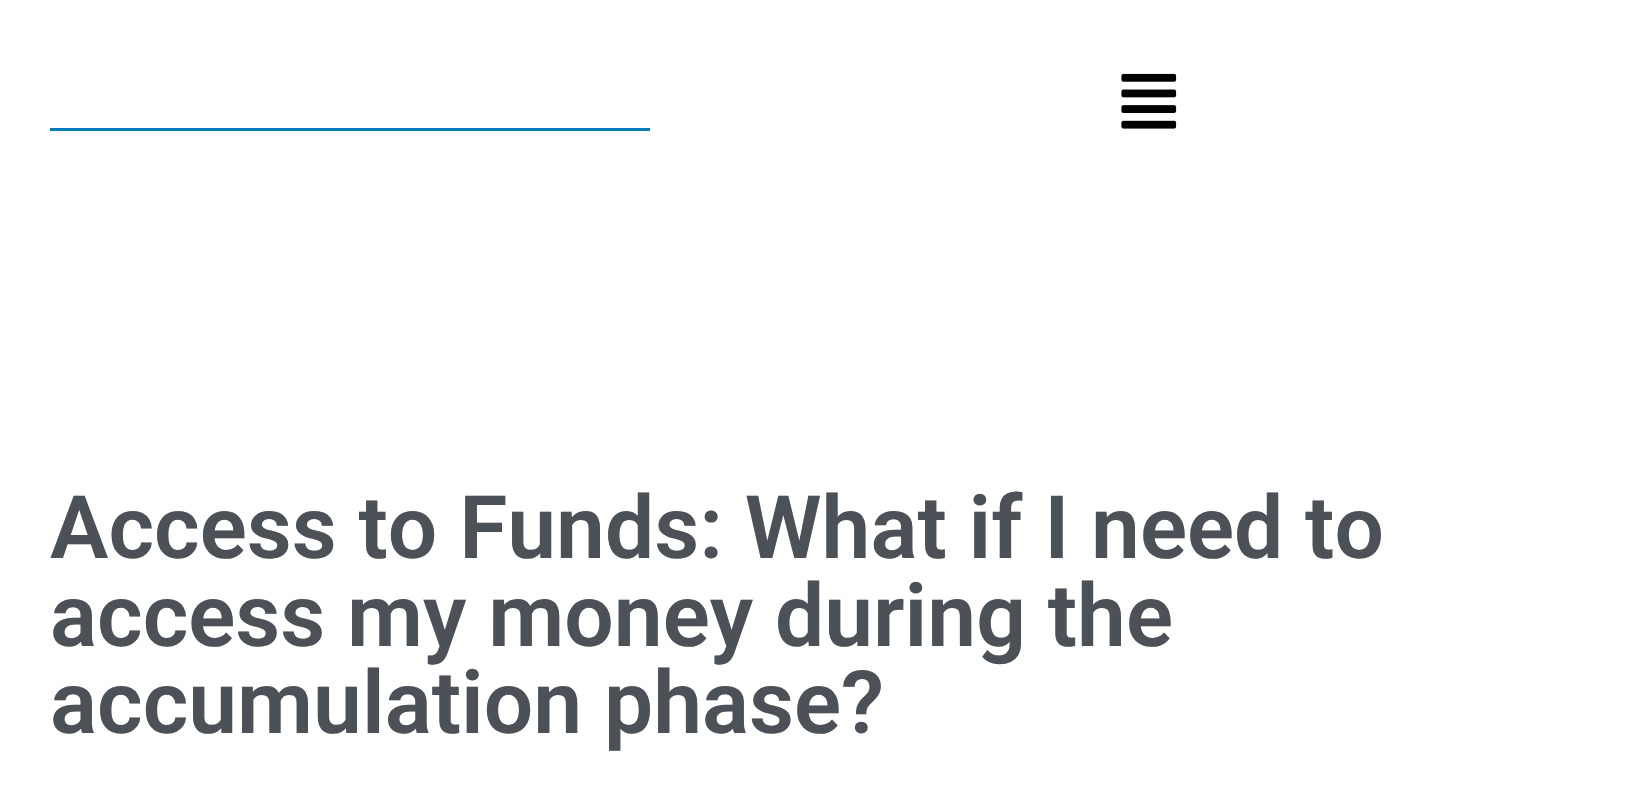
void draw(SkCanvas* canvas) {
	SkPaint fill;
	fill.setAntiAlias(true);
	auto makeFont = [&](const char* family, int weight, float size, bool italic = false) {
		SkFontStyle style(weight, SkFontStyle::kNormal_Width,
			italic ? SkFontStyle::kItalic_Slant : SkFontStyle::kUpright_Slant);
		SkFont result(fontMgr->matchFamilyStyle(family, style), size);
		result.setSubpixel(true);
		return result;
	};
	auto text = [&](const char* s, float x, float y, const SkFont& font) {
		canvas->drawString(s, x, y, font, fill);
	};
	auto box = [&](float l, float t, float r, float b) {
		canvas->drawRect(SkRect::MakeLTRB(l, t, r, b), fill);
	};
	auto picture = [&](const char* path, float l, float t, float r, float b) {
		auto image = SkImages::DeferredFromEncodedData(SkData::MakeFromFileName(path));
		canvas->drawImageRect(image, SkRect::MakeLTRB(l, t, r, b), SkSamplingOptions());
	};
	canvas->clear(0xFFFFFFFF);
	picture("image0.png", 1121, 73, 1177, 129);
	fill.setColor(0xFF007CBA);
	box(50, 128, 650, 131);
	auto font1 = makeFont("Roboto", 600, 87.5f);
	fill.setColor(0xFF4C5157);
	text("Access to Funds: What if I need to", 50, 558, font1);
	text("access my money during the", 50, 646, font1);
	text("accumulation phase?", 50, 733, font1);
}
